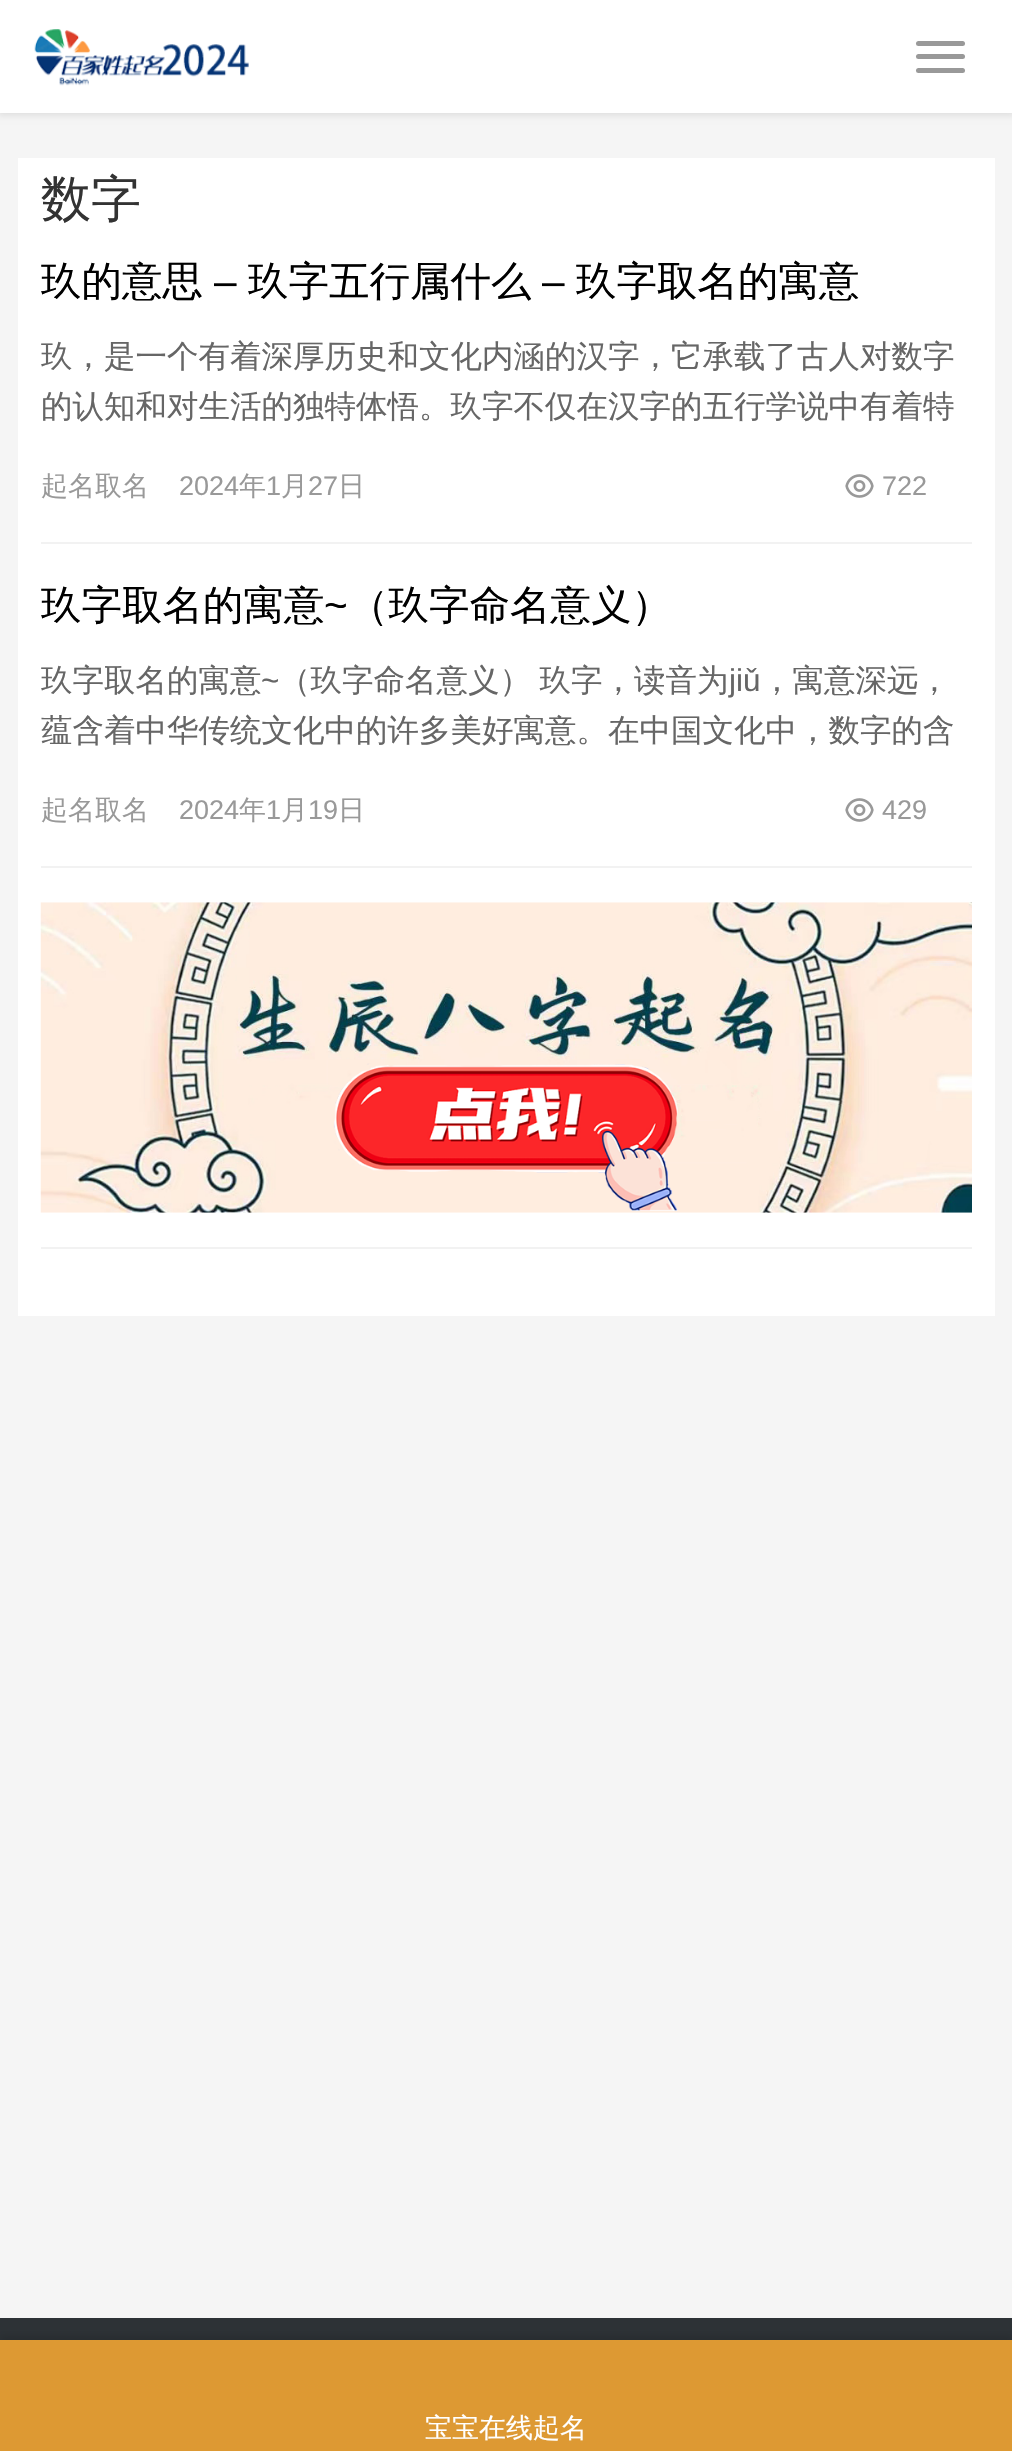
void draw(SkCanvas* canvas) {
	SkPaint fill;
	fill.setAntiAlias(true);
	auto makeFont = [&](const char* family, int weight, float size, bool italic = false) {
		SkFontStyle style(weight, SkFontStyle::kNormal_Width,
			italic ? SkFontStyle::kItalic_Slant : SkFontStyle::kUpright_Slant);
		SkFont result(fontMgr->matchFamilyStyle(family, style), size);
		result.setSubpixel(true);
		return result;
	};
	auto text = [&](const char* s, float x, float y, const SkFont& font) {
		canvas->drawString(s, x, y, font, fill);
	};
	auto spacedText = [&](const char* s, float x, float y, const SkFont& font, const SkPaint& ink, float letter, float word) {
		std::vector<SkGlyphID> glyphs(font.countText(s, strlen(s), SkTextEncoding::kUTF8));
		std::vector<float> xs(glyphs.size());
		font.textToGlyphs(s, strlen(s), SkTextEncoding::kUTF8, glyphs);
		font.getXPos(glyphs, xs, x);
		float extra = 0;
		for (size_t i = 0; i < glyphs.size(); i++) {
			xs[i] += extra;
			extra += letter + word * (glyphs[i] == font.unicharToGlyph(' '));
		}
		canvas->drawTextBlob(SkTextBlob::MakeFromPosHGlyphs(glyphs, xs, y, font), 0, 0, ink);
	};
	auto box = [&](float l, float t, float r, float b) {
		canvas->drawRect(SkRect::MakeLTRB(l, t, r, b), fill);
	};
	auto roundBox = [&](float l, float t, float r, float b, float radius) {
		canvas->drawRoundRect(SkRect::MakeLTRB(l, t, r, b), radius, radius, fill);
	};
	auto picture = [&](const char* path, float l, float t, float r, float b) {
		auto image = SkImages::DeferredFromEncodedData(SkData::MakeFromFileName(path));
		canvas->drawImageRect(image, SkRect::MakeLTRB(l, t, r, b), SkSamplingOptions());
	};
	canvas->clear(0xFFF5F5F5);
	fill.setColor(0x1A000000);
	fill.setMaskFilter(SkMaskFilter::MakeBlur(kNormal_SkBlurStyle, 3.5f));
	canvas->drawRect(SkRect::MakeLTRB(-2, -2, 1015, 115), fill);
	fill.setMaskFilter(nullptr);
	fill.setColor(0xFFFFFFFF);
	box(0, 0, 1012, 113);
	picture("image0.png", 34, 29, 249, 86);
	fill.setColor(0xFF999999);
	roundBox(916, 41, 965, 46, 2.5f);
	roundBox(916, 54, 965, 59, 2.5f);
	roundBox(916, 68, 965, 73, 2.5f);
	fill.setColor(0xFFFFFFFF);
	box(18, 158, 995, 1316);
	fill.setColor(0xFFF2F2F2);
	box(41, 542, 972, 544);
	picture("image1.png", 845, 474, 874, 498);
	box(41, 866, 972, 868);
	picture("image1.png", 845, 798, 874, 822);
	box(41, 1247, 972, 1249);
	picture("image2.png", 40, 902, 972, 1213);
	fill.setColor(0xFF2D3236);
	box(0, 2318, 1012, 2340);
	fill.setColor(0x1F000000);
	fill.setMaskFilter(SkMaskFilter::MakeBlur(kNormal_SkBlurStyle, 3.5f));
	canvas->drawRect(SkRect::MakeLTRB(0, 2336, 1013, 2448), fill);
	fill.setMaskFilter(nullptr);
	fill.setColor(0xFFDD9933);
	box(0, 2340, 1012, 2451);
	auto font1 = makeFont("WenQuanYi Zen Hei", 500, 50);
	fill.setColor(0xFF333333);
	text("数字", 41, 216, font1);
	canvas->save();
	canvas->clipRect(SkRect::MakeLTRB(41, 254, 972, 308));
	auto font2 = makeFont("WenQuanYi Zen Hei", 500, 40.5f);
	fill.setColor(0xFF000000);
	text("玖的意思", 41, 295, font2);
	canvas->restore();
	auto font3 = makeFont("Liberation Sans", 400, 40.5f);
	text("–", 214, 295, font3);
	text("玖字五行属什么", 248, 295, font2);
	text("–", 542, 295, font3);
	text("玖字取名的寓意", 576, 295, font2);
	canvas->save();
	canvas->clipRect(SkRect::MakeLTRB(41, 331, 972, 430));
	auto font4 = makeFont("WenQuanYi Zen Hei", 500, 31.5f);
	fill.setColor(0xFF666666);
	text("玖，是一个有着深厚历史和文化内涵的汉字，它承载了古人对数字", 41, 367, font4);
	canvas->restore();
	text("的认知和对生活的独特体悟。玖字不仅在汉字的五行学说中有着特", 41, 417, font4);
	auto font5 = makeFont("WenQuanYi Zen Hei", 500, 27);
	fill.setColor(0xFF999999);
	text("起名取名", 41, 495, font5);
	auto font6 = makeFont("Liberation Sans", 400, 27);
	text("2024", 179, 495, font6);
	text("年", 239, 495, font5);
	text("1", 266, 495, font6);
	text("月", 281, 495, font5);
	text("27", 308, 495, font6);
	text("日", 338, 495, font5);
	text("722", 882, 495, font6);
	canvas->save();
	canvas->clipRect(SkRect::MakeLTRB(41, 578, 972, 632));
	fill.setColor(0xFF000000);
	text("玖字取名的寓意", 41, 619, font2);
	canvas->restore();
	text("~", 324, 619, font3);
	text("（玖字命名意义）", 348, 619, font2);
	canvas->save();
	canvas->clipRect(SkRect::MakeLTRB(41, 655, 972, 754));
	fill.setColor(0xFF666666);
	text("玖字取名的寓意", 41, 691, font4);
	canvas->restore();
	auto font7 = makeFont("Liberation Sans", 400, 31.5f);
	text("~", 261, 691, font7);
	spacedText("（玖字命名意义） 玖字，读音为", 279, 691, font4, fill, 0, -1);
	text("jiǔ", 729, 691, font7);
	text("，寓意深远，", 761, 691, font4);
	text("蕴含着中华传统文化中的许多美好寓意。在中国文化中，数字的含", 41, 741, font4);
	fill.setColor(0xFF999999);
	text("起名取名", 41, 819, font5);
	text("2024", 179, 819, font6);
	text("年", 239, 819, font5);
	text("1", 266, 819, font6);
	text("月", 281, 819, font5);
	text("19", 308, 819, font6);
	text("日", 338, 819, font5);
	text("429", 882, 819, font6);
	fill.setColor(0xFFFFFFFF);
	text("宝宝在线起名", 425, 2437, font5);
}
